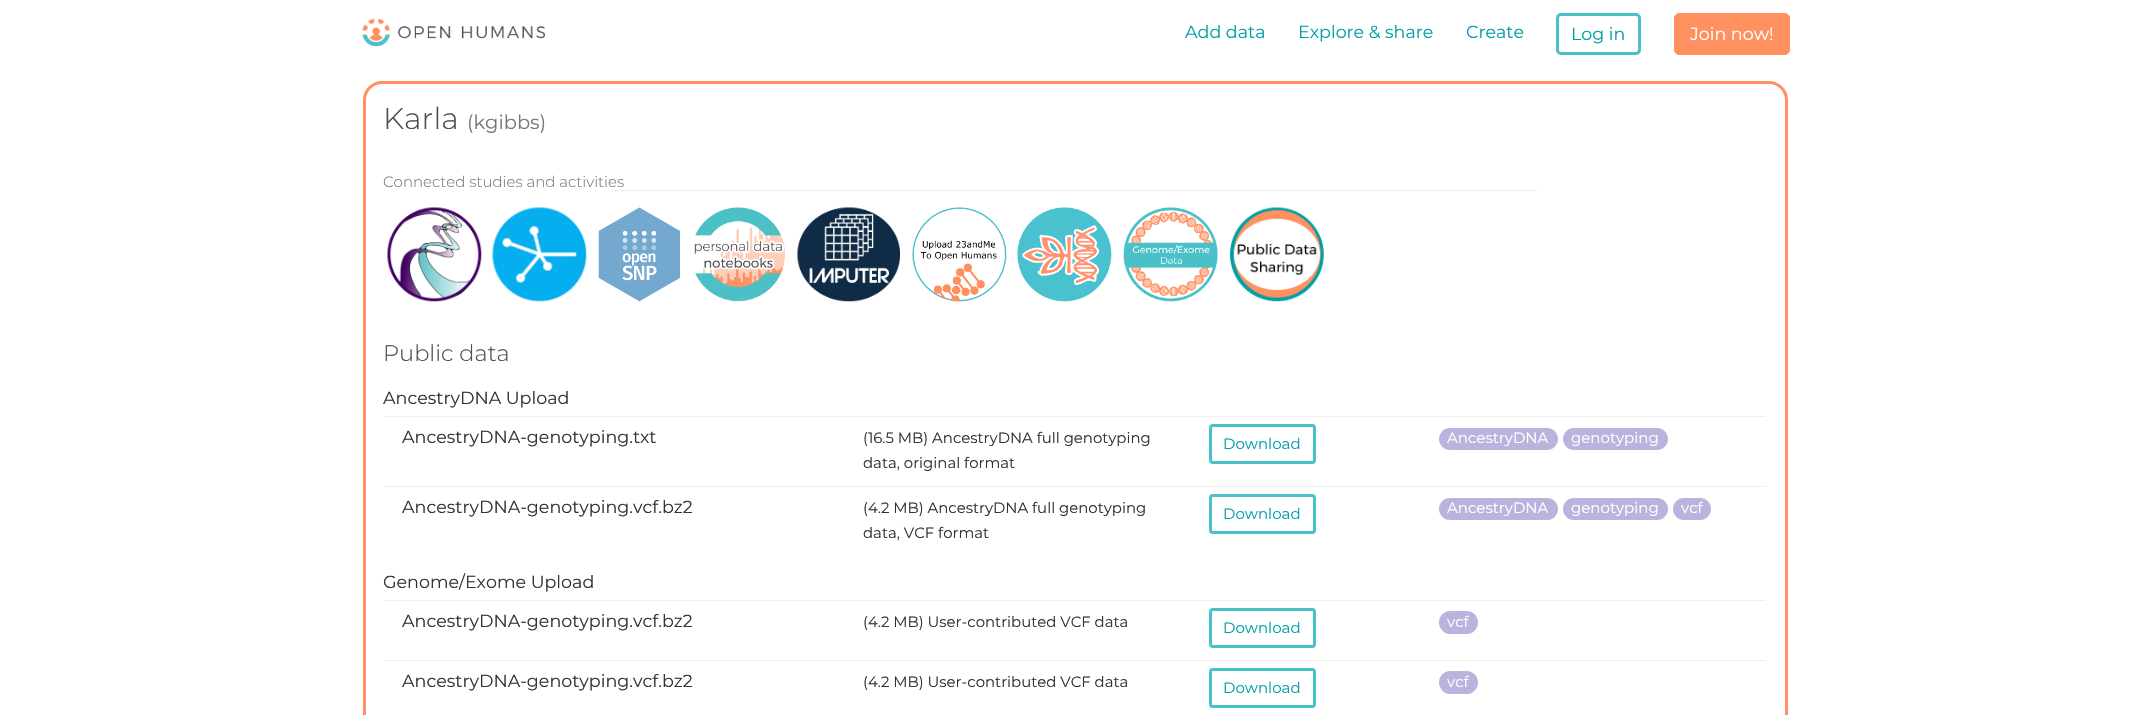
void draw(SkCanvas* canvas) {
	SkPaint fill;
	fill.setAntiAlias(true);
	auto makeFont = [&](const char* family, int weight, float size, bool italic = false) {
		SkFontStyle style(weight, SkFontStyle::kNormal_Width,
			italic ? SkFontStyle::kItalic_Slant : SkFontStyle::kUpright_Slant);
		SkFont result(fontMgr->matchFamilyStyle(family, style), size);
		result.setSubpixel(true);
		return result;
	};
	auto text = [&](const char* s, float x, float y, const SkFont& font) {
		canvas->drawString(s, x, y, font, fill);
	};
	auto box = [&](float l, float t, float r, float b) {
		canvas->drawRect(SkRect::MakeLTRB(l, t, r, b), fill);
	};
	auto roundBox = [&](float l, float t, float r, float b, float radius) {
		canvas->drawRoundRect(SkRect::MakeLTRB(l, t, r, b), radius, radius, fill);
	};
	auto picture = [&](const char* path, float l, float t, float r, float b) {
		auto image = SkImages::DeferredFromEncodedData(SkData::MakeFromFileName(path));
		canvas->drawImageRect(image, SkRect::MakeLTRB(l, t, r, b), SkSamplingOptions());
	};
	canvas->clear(0xFFFFFFFF);
	picture("image0.png", 362, 18, 545, 47);
	fill.setStyle(SkPaint::kStroke_Style);
	fill.setStrokeWidth(3);
	fill.setColor(0xFF4AC1C8);
	canvas->drawRoundRect(SkRect::MakeLTRB(1557.5f, 14.5f, 1639.5f, 53.5f), 3.5f, 3.5f, fill);
	fill.setStyle(SkPaint::kFill_Style);
	fill.setColor(0xFFFF9161);
	canvas->drawRoundRect(SkRect::MakeLTRB(1674.5f, 13.5f, 1789.5f, 54.5f), 4.5f, 4.5f, fill);
	fill.setStyle(SkPaint::kStroke_Style);
	fill.setStrokeWidth(1);
	canvas->drawRoundRect(SkRect::MakeLTRB(1674.5f, 13.5f, 1789.5f, 54.5f), 4.5f, 4.5f, fill);
	fill.setStrokeWidth(3);
	canvas->drawRoundRect(SkRect::MakeLTRB(364.5f, 82.5f, 1786.5f, 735.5f), 17.5f, 17.5f, fill);
	fill.setStyle(SkPaint::kFill_Style);
	fill.setColor(0xFFEEEEEE);
	box(611, 190, 1538, 191);
	picture("image1.png", 387, 207, 482, 302);
	picture("image2.png", 492, 207, 587, 302);
	picture("image3.png", 598, 207, 680, 302);
	picture("image4.png", 694, 207, 785, 302);
	picture("image5.png", 797, 207, 900, 302);
	picture("image6.png", 912, 207, 1007, 302);
	picture("image7.png", 1017, 207, 1112, 302);
	picture("image8.png", 1123, 207, 1218, 302);
	picture("image9.png", 1230, 207, 1324, 302);
	box(384, 416, 1766, 417);
	fill.setStyle(SkPaint::kStroke_Style);
	fill.setColor(0xFF4AC1C8);
	canvas->drawRoundRect(SkRect::MakeLTRB(1210.5f, 425.5f, 1314.5f, 462.5f), 2.5f, 2.5f, fill);
	fill.setStyle(SkPaint::kFill_Style);
	fill.setColor(0xFFBBB3DD);
	roundBox(1439, 428, 1558, 450, 11);
	roundBox(1563, 428, 1668, 450, 11);
	fill.setColor(0xFFEEEEEE);
	box(384, 486, 1766, 487);
	fill.setStyle(SkPaint::kStroke_Style);
	fill.setColor(0xFF4AC1C8);
	canvas->drawRoundRect(SkRect::MakeLTRB(1210.5f, 495.5f, 1314.5f, 532.5f), 2.5f, 2.5f, fill);
	fill.setStyle(SkPaint::kFill_Style);
	fill.setColor(0xFFBBB3DD);
	roundBox(1439, 498, 1558, 520, 11);
	roundBox(1563, 498, 1668, 520, 11);
	roundBox(1673, 498, 1711, 520, 11);
	fill.setColor(0xFFEEEEEE);
	box(384, 600, 1766, 601);
	fill.setStyle(SkPaint::kStroke_Style);
	fill.setColor(0xFF4AC1C8);
	canvas->drawRoundRect(SkRect::MakeLTRB(1210.5f, 609.5f, 1314.5f, 646.5f), 2.5f, 2.5f, fill);
	fill.setStyle(SkPaint::kFill_Style);
	fill.setColor(0xFFBBB3DD);
	roundBox(1439, 611, 1478, 634, 11.5f);
	fill.setColor(0xFFEEEEEE);
	box(384, 660, 1766, 661);
	fill.setStyle(SkPaint::kStroke_Style);
	fill.setColor(0xFF4AC1C8);
	canvas->drawRoundRect(SkRect::MakeLTRB(1210.5f, 669.5f, 1314.5f, 706.5f), 2.5f, 2.5f, fill);
	fill.setStyle(SkPaint::kFill_Style);
	fill.setColor(0xFFBBB3DD);
	roundBox(1439, 671, 1478, 694, 11.5f);
	auto font1 = makeFont("Montserrat", 400, 17.5f);
	fill.setColor(0xFF009FA8);
	text("Add data", 1185, 38, font1);
	text("Explore & share", 1298, 38, font1);
	text("Create", 1466, 38, font1);
	text("Log in", 1571, 40, font1);
	fill.setColor(0xFFFFFFFF);
	text("Join now!", 1690, 40, font1);
	auto font2 = makeFont("Montserrat", 300, 30);
	fill.setColor(0xFF4D4D4D);
	text("Karla", 383, 129, font2);
	auto font3 = makeFont("Montserrat", 400, 19.5f);
	fill.setColor(0xFF777777);
	text("(kgibbs)", 467, 129, font3);
	auto font4 = makeFont("Montserrat", 300, 15);
	text("Connected studies and activities", 383, 187, font4);
	auto font5 = makeFont("Montserrat", 300, 22.5f);
	fill.setColor(0xFF4D4D4D);
	text("Public data", 383, 361, font5);
	fill.setColor(0xFF333333);
	text("AncestryDNA Upload", 383, 404, font1);
	text("AncestryDNA-genotyping.txt", 402, 443, font1);
	auto font6 = makeFont("Montserrat", 400, 14.9f);
	text("(16.5 MB) AncestryDNA full genotyping", 863, 443, font6);
	text("data, original format", 863, 468, font6);
	auto font7 = makeFont("Montserrat", 400, 15);
	fill.setColor(0xFF009FA8);
	text("Download", 1223, 449, font7);
	fill.setColor(0xFFFFFFFF);
	text("AncestryDNA", 1447, 443, font7);
	text("genotyping", 1571, 443, font7);
	fill.setColor(0xFF333333);
	text("AncestryDNA-genotyping.vcf.bz2", 402, 513, font1);
	text("(4.2 MB) AncestryDNA full genotyping", 863, 513, font6);
	text("data, VCF format", 863, 538, font6);
	fill.setColor(0xFF009FA8);
	text("Download", 1223, 519, font7);
	fill.setColor(0xFFFFFFFF);
	text("AncestryDNA", 1447, 513, font7);
	text("genotyping", 1571, 513, font7);
	text("vcf", 1681, 513, font7);
	fill.setColor(0xFF333333);
	text("Genome/Exome Upload", 383, 588, font1);
	text("AncestryDNA-genotyping.vcf.bz2", 402, 627, font1);
	text("(4.2 MB) User-contributed VCF data", 863, 627, font6);
	fill.setColor(0xFF009FA8);
	text("Download", 1223, 633, font7);
	fill.setColor(0xFFFFFFFF);
	text("vcf", 1447, 627, font7);
	fill.setColor(0xFF333333);
	text("AncestryDNA-genotyping.vcf.bz2", 402, 687, font1);
	text("(4.2 MB) User-contributed VCF data", 863, 687, font6);
	fill.setColor(0xFF009FA8);
	text("Download", 1223, 693, font7);
	fill.setColor(0xFFFFFFFF);
	text("vcf", 1447, 687, font7);
}
